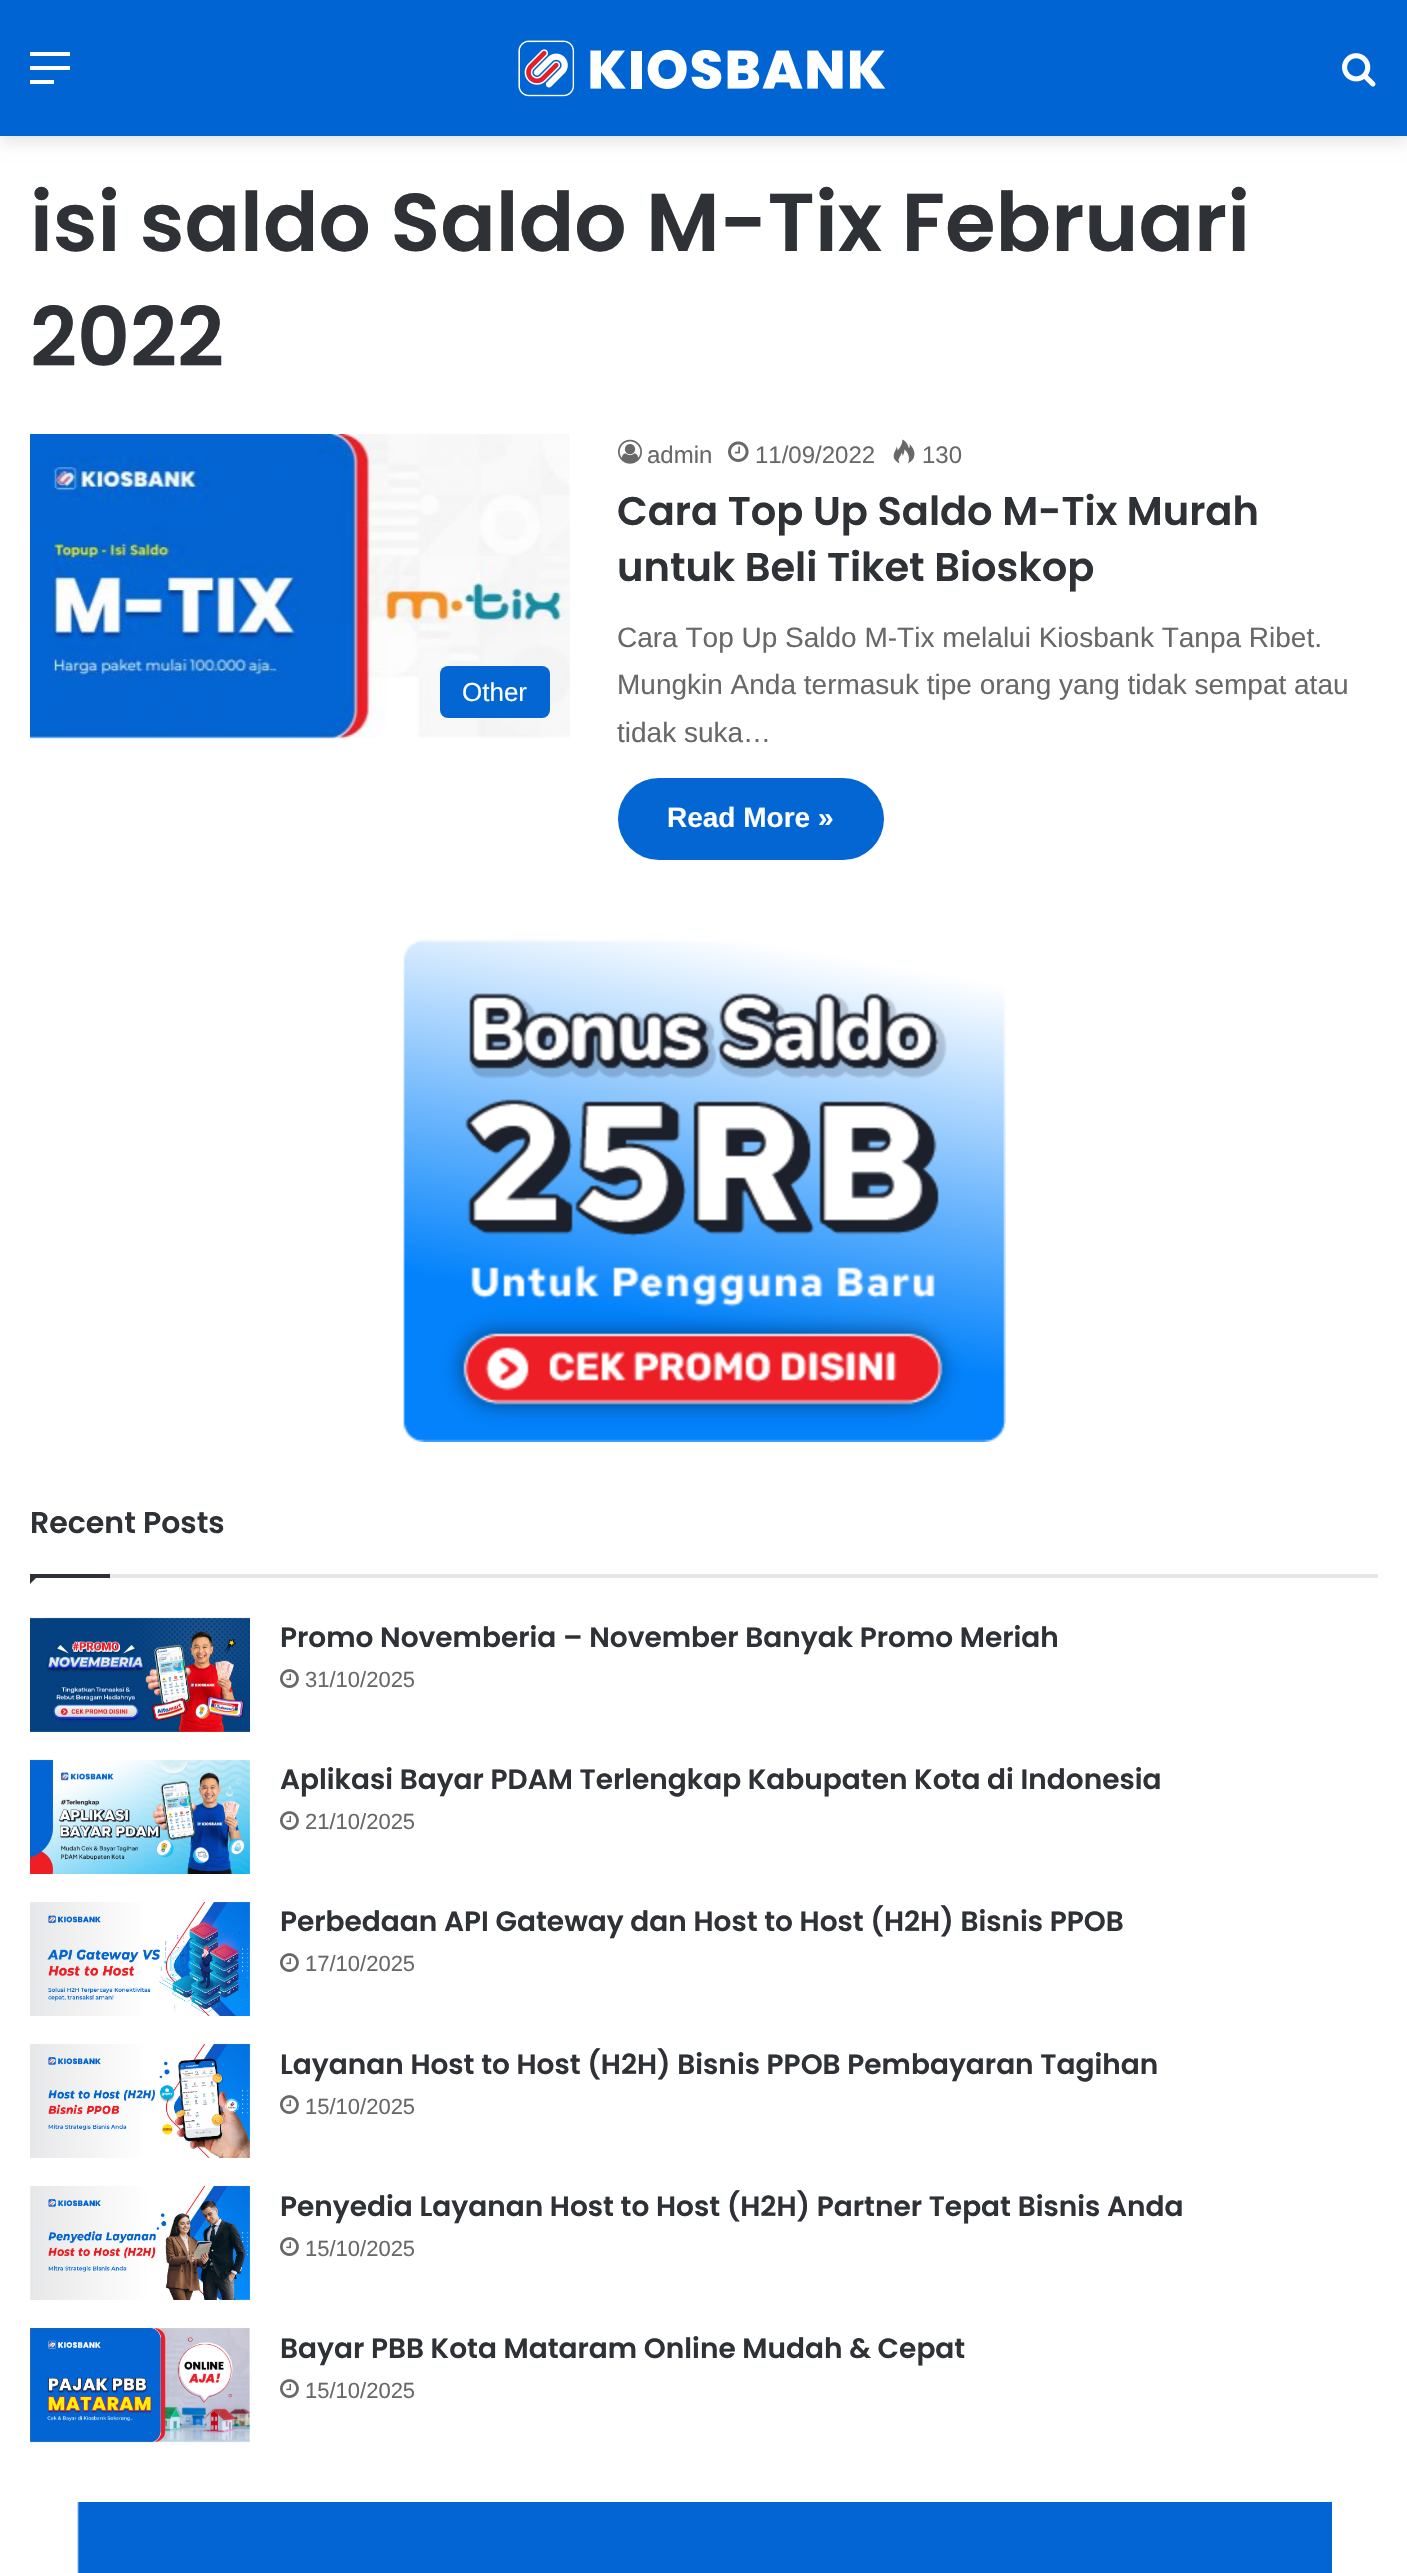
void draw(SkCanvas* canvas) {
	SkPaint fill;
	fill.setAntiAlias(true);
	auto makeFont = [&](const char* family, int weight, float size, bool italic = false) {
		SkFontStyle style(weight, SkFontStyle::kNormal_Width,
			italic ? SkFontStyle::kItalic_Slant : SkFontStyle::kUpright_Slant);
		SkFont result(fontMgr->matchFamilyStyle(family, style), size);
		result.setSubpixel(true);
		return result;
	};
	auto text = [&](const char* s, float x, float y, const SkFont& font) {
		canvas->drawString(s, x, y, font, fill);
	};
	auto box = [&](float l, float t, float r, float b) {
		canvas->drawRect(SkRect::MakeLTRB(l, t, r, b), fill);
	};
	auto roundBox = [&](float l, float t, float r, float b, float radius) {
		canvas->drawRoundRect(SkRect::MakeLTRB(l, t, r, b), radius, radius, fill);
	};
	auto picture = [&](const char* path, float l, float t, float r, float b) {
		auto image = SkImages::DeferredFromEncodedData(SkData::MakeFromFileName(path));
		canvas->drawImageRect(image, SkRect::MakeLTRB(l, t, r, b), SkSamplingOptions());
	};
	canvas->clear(0xFFFFFFFF);
	fill.setColor(0x1A000000);
	fill.setMaskFilter(SkMaskFilter::MakeBlur(kNormal_SkBlurStyle, 7));
	canvas->drawRect(SkRect::MakeLTRB(0, 6, 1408, 142), fill);
	fill.setMaskFilter(nullptr);
	fill.setColor(0xFF0064D2);
	box(0, 0, 1407, 136);
	fill.setColor(0xFFFFFFFF);
	box(30, 66, 70, 70);
	box(30, 52, 70, 56);
	box(30, 80, 54, 84);
	picture("image0.png", 518, 40, 886, 97);
	picture("image1.png", 1342, 53, 1376, 87);
	picture("image2.png", 30, 434, 570, 739);
	fill.setColor(0xFF0366D2);
	roundBox(440, 666, 550, 718, 8);
	picture("image3.png", 618, 439, 642, 464);
	picture("image4.png", 728, 441, 749, 462);
	picture("image5.png", 893, 439, 915, 464);
	roundBox(618, 778, 884, 860, 41);
	picture("image6.png", 403, 939, 1006, 1442);
	fill.setColor(0xFFE6E6E6);
	box(110, 1574, 1378, 1578);
	fill.setColor(0xFF2E3136);
	canvas->drawPath(SkPathBuilder().moveTo(30, 1574).lineTo(40, 1574).lineTo(30, 1584).close().detach(), fill);
	box(30, 1574, 110, 1578);
	picture("image7.png", 30, 1617, 250, 1732);
	picture("image8.png", 280, 1669, 299, 1688);
	picture("image9.png", 30, 1759, 250, 1874);
	picture("image8.png", 280, 1811, 299, 1830);
	picture("image10.png", 30, 1902, 250, 2016);
	picture("image8.png", 280, 1953, 299, 1972);
	picture("image11.png", 30, 2043, 250, 2158);
	picture("image8.png", 280, 2095, 299, 2114);
	picture("image12.png", 30, 2185, 250, 2300);
	picture("image8.png", 280, 2237, 299, 2256);
	picture("image13.png", 30, 2328, 250, 2443);
	picture("image8.png", 280, 2379, 299, 2398);
	picture("image14.png", 77, 2502, 1332, 2573);
	auto font1 = makeFont("Poppins", 600, 82);
	text("isi saldo Saldo M-Tix Februari", 30, 251, font1);
	text("2022", 30, 366, font1);
	auto font2 = makeFont("Liberation Sans", 400, 26);
	fill.setColor(0xFFFFFFFF);
	text("Other", 462, 701, font2);
	auto font3 = makeFont("Liberation Sans", 400, 24);
	fill.setColor(0xFF686868);
	text("admin", 647, 463, font3);
	text("11/09/2022", 755, 463, font3);
	text("130", 922, 463, font3);
	auto font4 = makeFont("Poppins", 600, 40);
	fill.setColor(0xFF2E3136);
	text("Cara Top Up Saldo M-Tix Murah", 617, 525, font4);
	text("untuk Beli Tiket Bioskop", 617, 581, font4);
	auto font5 = makeFont("Liberation Sans", 400, 28);
	fill.setColor(0xFF686868);
	text("Cara Top Up Saldo M-Tix melalui Kiosbank Tanpa Ribet.", 617, 647, font5);
	text("Mungkin Anda termasuk tipe orang yang tidak sempat atau", 617, 694, font5);
	text("tidak suka…", 617, 742, font5);
	auto font6 = makeFont("Liberation Sans", 700, 28);
	fill.setColor(0xFFFFFFFF);
	text("Read More »", 667, 827, font6);
	auto font7 = makeFont("Poppins", 600, 30);
	fill.setColor(0xFF2E3136);
	text("Recent Posts", 30, 1533, font7);
	auto font8 = makeFont("Poppins", 600, 28);
	text("Promo Novemberia – November Banyak Promo Meriah", 280, 1647, font8);
	auto font9 = makeFont("Liberation Sans", 400, 22);
	fill.setColor(0xFF686868);
	text("31/10/2025", 305, 1687, font9);
	fill.setColor(0xFF2E3136);
	text("Aplikasi Bayar PDAM Terlengkap Kabupaten Kota di Indonesia", 280, 1789, font8);
	fill.setColor(0xFF686868);
	text("21/10/2025", 305, 1829, font9);
	fill.setColor(0xFF2E3136);
	text("Perbedaan API Gateway dan Host to Host (H2H) Bisnis PPOB", 280, 1931, font8);
	fill.setColor(0xFF686868);
	text("17/10/2025", 305, 1971, font9);
	fill.setColor(0xFF2E3136);
	text("Layanan Host to Host (H2H) Bisnis PPOB Pembayaran Tagihan", 280, 2074, font8);
	fill.setColor(0xFF686868);
	text("15/10/2025", 305, 2114, font9);
	fill.setColor(0xFF2E3136);
	text("Penyedia Layanan Host to Host (H2H) Partner Tepat Bisnis Anda", 280, 2216, font8);
	fill.setColor(0xFF686868);
	text("15/10/2025", 305, 2256, font9);
	fill.setColor(0xFF2E3136);
	text("Bayar PBB Kota Mataram Online Mudah & Cepat", 280, 2358, font8);
	fill.setColor(0xFF686868);
	text("15/10/2025", 305, 2398, font9);
}
